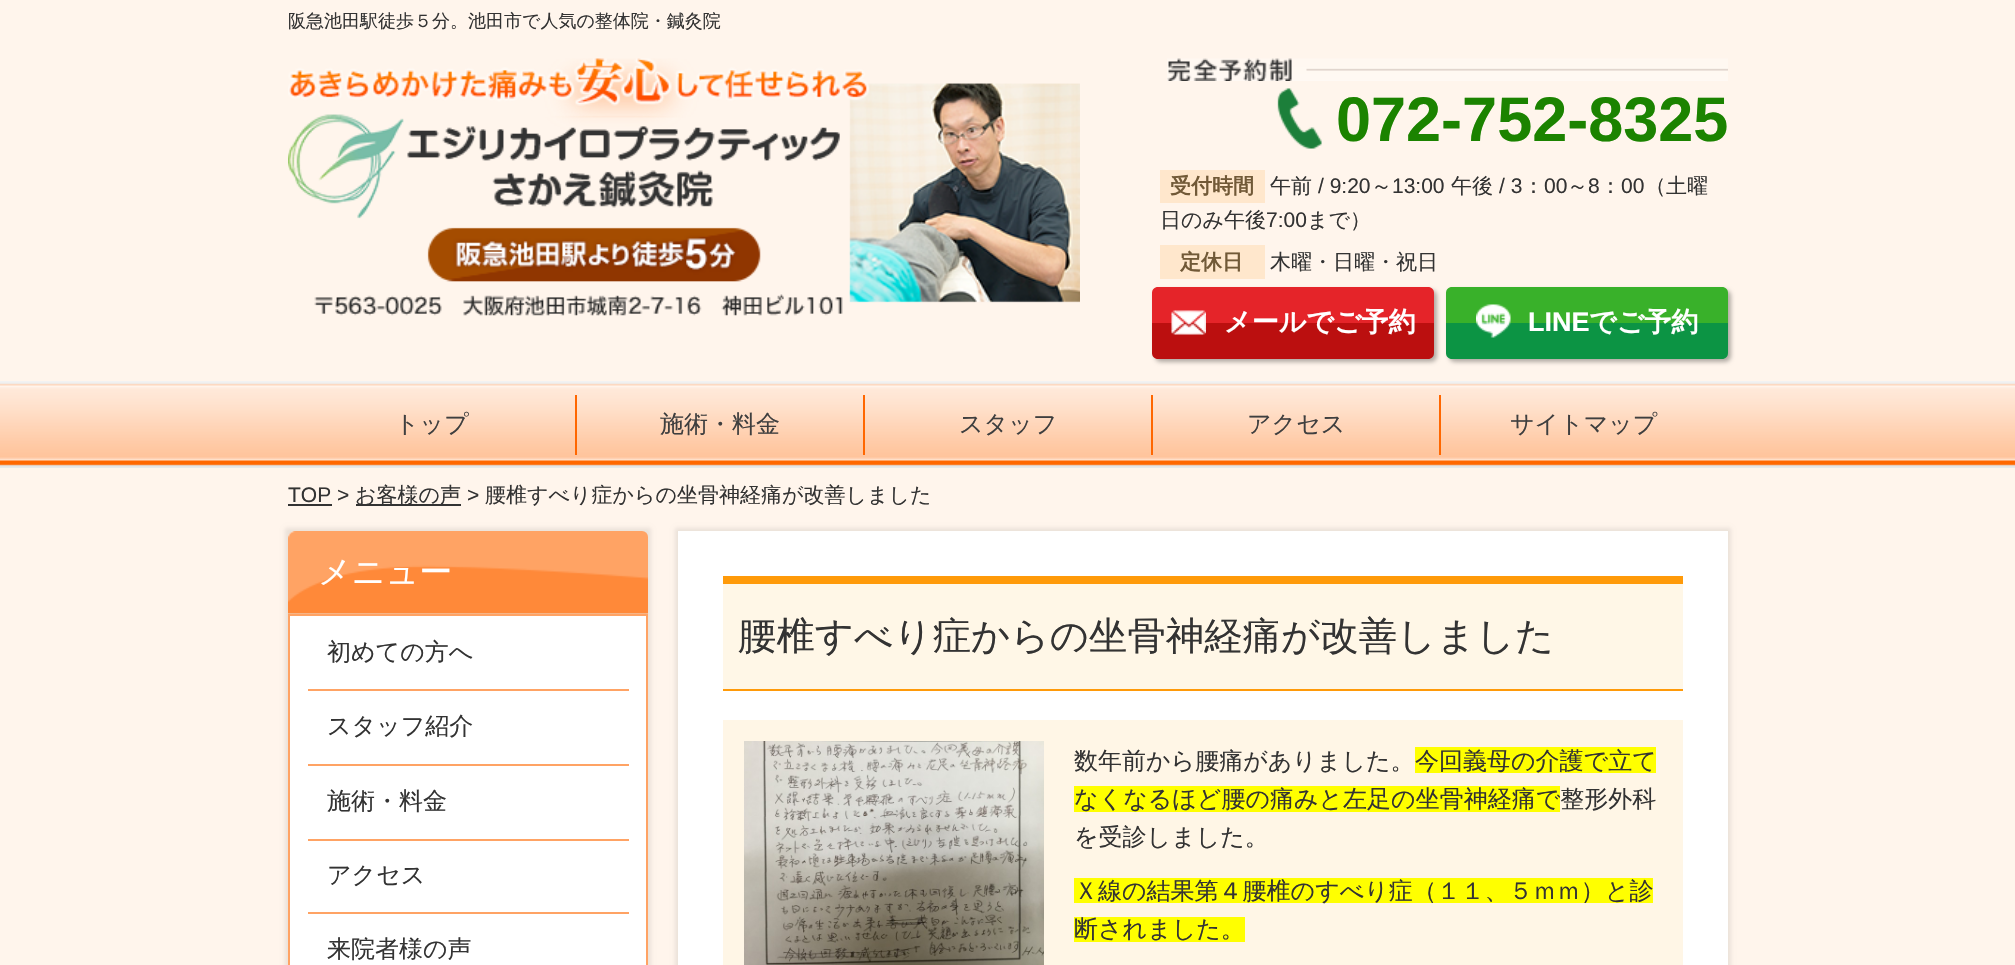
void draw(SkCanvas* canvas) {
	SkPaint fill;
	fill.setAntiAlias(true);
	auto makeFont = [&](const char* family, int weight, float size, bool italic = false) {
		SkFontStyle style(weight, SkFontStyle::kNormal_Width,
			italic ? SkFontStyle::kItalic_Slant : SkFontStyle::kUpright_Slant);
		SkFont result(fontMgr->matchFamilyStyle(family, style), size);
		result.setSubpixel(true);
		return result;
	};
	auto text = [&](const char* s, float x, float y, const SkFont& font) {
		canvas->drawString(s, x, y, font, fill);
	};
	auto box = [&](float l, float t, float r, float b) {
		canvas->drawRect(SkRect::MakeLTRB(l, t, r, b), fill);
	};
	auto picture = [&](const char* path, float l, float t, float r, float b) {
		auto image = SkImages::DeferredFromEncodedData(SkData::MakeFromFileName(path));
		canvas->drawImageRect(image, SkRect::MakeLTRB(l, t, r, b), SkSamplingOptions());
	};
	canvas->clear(0xFFFFF5EC);
	picture("image0.png", 288, 58, 1080, 316);
	picture("image1.png", 1167, 58, 1728, 81);
	picture("image2.png", 1277, 88, 1322, 149);
	fill.setColor(0xFFFFE7CC);
	box(1160, 170, 1265, 203);
	box(1160, 245, 1265, 279);
	fill.setColor(0x4D000000);
	fill.setMaskFilter(SkMaskFilter::MakeBlur(kNormal_SkBlurStyle, 2));
	canvas->drawRoundRect(SkRect::MakeLTRB(1155, 290, 1437, 362), 6, 6, fill);
	fill.setMaskFilter(nullptr);
	fill.setColor(0xFFE52429);
	canvas->drawPath(SkPathBuilder().moveTo(1158, 287).lineTo(1428, 287).cubicTo(1431.5f, 287, 1434, 289.5f, 1434, 293).lineTo(1434, 323).lineTo(1152, 323).lineTo(1152, 293).cubicTo(1152, 289.5f, 1154.5f, 287, 1158, 287).close().detach(), fill);
	fill.setColor(0xFFBB0F0F);
	canvas->drawPath(SkPathBuilder().moveTo(1152, 323).lineTo(1434, 323).lineTo(1434, 353).cubicTo(1434, 356.5f, 1431.5f, 359, 1428, 359).lineTo(1158, 359).cubicTo(1154.5f, 359, 1152, 356.5f, 1152, 353).close().detach(), fill);
	picture("image3.png", 1171, 310, 1206, 335);
	fill.setColor(0x4D000000);
	fill.setMaskFilter(SkMaskFilter::MakeBlur(kNormal_SkBlurStyle, 2));
	canvas->drawRoundRect(SkRect::MakeLTRB(1449, 290, 1731, 362), 6, 6, fill);
	fill.setMaskFilter(nullptr);
	fill.setColor(0xFF39B12A);
	canvas->drawPath(SkPathBuilder().moveTo(1452, 287).lineTo(1722, 287).cubicTo(1725.5f, 287, 1728, 289.5f, 1728, 293).lineTo(1728, 323).lineTo(1446, 323).lineTo(1446, 293).cubicTo(1446, 289.5f, 1448.5f, 287, 1452, 287).close().detach(), fill);
	fill.setColor(0xFF0C9444);
	canvas->drawPath(SkPathBuilder().moveTo(1446, 323).lineTo(1728, 323).lineTo(1728, 353).cubicTo(1728, 356.5f, 1725.5f, 359, 1722, 359).lineTo(1452, 359).cubicTo(1448.5f, 359, 1446, 356.5f, 1446, 353).close().detach(), fill);
	picture("image4.png", 1476, 304, 1511, 338);
	picture("image5.png", 0, 381, 2015, 468);
	fill.setColor(0xFFFF6700);
	box(575, 395, 577, 455);
	box(863, 395, 865, 455);
	box(1151, 395, 1153, 455);
	box(1439, 395, 1441, 455);
	fill.setColor(0xFF333333);
	box(288, 504, 332, 506);
	box(356, 504, 461, 506);
	fill.setColor(0x14000000);
	fill.setMaskFilter(SkMaskFilter::MakeBlur(kNormal_SkBlurStyle, 2));
	canvas->drawRect(SkRect::MakeLTRB(285, 528, 651, 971), fill);
	fill.setMaskFilter(nullptr);
	picture("image6.png", 288, 531, 648, 614);
	fill.setColor(0xFFFFFFFF);
	canvas->drawRect(SkRect::MakeLTRB(289, 615, 647, 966), fill);
	fill.setStyle(SkPaint::kStroke_Style);
	fill.setStrokeWidth(2);
	fill.setColor(0xFFFFA364);
	canvas->drawRect(SkRect::MakeLTRB(289, 615, 647, 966), fill);
	fill.setStyle(SkPaint::kFill_Style);
	box(308, 689, 629, 691);
	box(308, 764, 629, 766);
	box(308, 839, 629, 841);
	box(308, 912, 629, 914);
	fill.setColor(0x14000000);
	fill.setMaskFilter(SkMaskFilter::MakeBlur(kNormal_SkBlurStyle, 2));
	canvas->drawRect(SkRect::MakeLTRB(675, 528, 1731, 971), fill);
	fill.setMaskFilter(nullptr);
	fill.setColor(0xFFFFFFFF);
	box(678, 531, 1728, 965);
	fill.setColor(0xFFFFF7E7);
	box(723, 584, 1683, 689);
	fill.setColor(0xFFFF9A09);
	box(723, 576, 1683, 584);
	box(723, 689, 1683, 691);
	fill.setColor(0xFFFFF6E6);
	box(723, 720, 1683, 965);
	picture("image7.png", 744, 741, 1044, 965);
	fill.setColor(0xFFFFFF00);
	box(1415, 747, 1656, 773);
	box(1074, 786, 1560, 812);
	box(1074, 878, 1653, 903);
	box(1074, 917, 1245, 942);
	auto font1 = makeFont("WenQuanYi Zen Hei", 500, 18);
	fill.setColor(0xFF333333);
	text("阪急池田駅徒歩５分。池田市で人気の整体院・鍼灸院", 288, 27, font1);
	auto font2 = makeFont("Liberation Sans", 700, 63);
	fill.setColor(0xFF1B8300);
	text("072-752-8325", 1336, 141, font2);
	auto font3 = makeFont("WenQuanYi Zen Hei", 700, 21);
	fill.setColor(0xFF715937);
	text("受付時間", 1170, 193, font3);
	auto font4 = makeFont("WenQuanYi Zen Hei", 500, 21);
	fill.setColor(0xFF333333);
	text("午前", 1270, 193, font4);
	auto font5 = makeFont("Liberation Sans", 400, 21);
	text("/ 9:20", 1318, 193, font5);
	text("～", 1371, 193, font4);
	text("13:00", 1392, 193, font5);
	text("午後", 1451, 193, font4);
	text("/ 3", 1499, 193, font5);
	text("：", 1523, 193, font4);
	text("00", 1544, 193, font5);
	text("～", 1567, 193, font4);
	text("8", 1588, 193, font5);
	text("：", 1600, 193, font4);
	text("00", 1621, 193, font5);
	text("（土曜", 1645, 193, font4);
	text("日のみ午後", 1160, 227, font4);
	text("7:00", 1266, 227, font5);
	text("まで）", 1307, 227, font4);
	fill.setColor(0xFF715937);
	text("定休日", 1180, 269, font3);
	fill.setColor(0xFF333333);
	text("木曜・日曜・祝日", 1270, 269, font4);
	auto font6 = makeFont("WenQuanYi Zen Hei", 700, 27);
	fill.setColor(0xFFFFFFFF);
	text("メールでご予約", 1224, 331, font6);
	auto font7 = makeFont("Liberation Sans", 700, 27);
	text("LINE", 1528, 331, font7);
	text("でご予約", 1589, 331, font6);
	auto font8 = makeFont("WenQuanYi Zen Hei", 500, 24);
	fill.setColor(0xFF3F3F3F);
	text("トップ", 395, 432, font8);
	text("施術・料金", 660, 432, font8);
	text("スタッフ", 959, 432, font8);
	text("アクセス", 1247, 432, font8);
	text("サイトマップ", 1510, 432, font8);
	fill.setColor(0xFF333333);
	text("TOP >", 288, 502, font5);
	text("お客様の声", 355, 502, font4);
	text(">", 467, 502, font5);
	text("腰椎すべり症からの坐骨神経痛が改善しました", 485, 502, font4);
	auto font9 = makeFont("WenQuanYi Zen Hei", 500, 33);
	fill.setColor(0xFFFFFFFF);
	text("メニュー", 318, 583, font9);
	fill.setColor(0xFF333333);
	text("初めての方へ", 327, 660, font8);
	text("スタッフ紹介", 327, 734, font8);
	text("施術・料金", 327, 809, font8);
	text("アクセス", 327, 883, font8);
	text("来院者様の声", 327, 957, font8);
	auto font10 = makeFont("WenQuanYi Zen Hei", 500, 38.4f);
	text("腰椎すべり症からの坐骨神経痛が改善しました", 738, 649, font10);
	text("数年前から腰痛がありました。", 1074, 769, font8);
	text("今回義母の介護で立て", 1415, 769, font8);
	text("なくなるほど腰の痛みと左足の坐骨神経痛で整形外科", 1074, 807, font8);
	text("を受診しました。", 1074, 845, font8);
	text("Ｘ線の結果第４腰椎のすべり症（１１、５ｍｍ）と診", 1074, 899, font8);
	text("断されました。", 1074, 937, font8);
}
